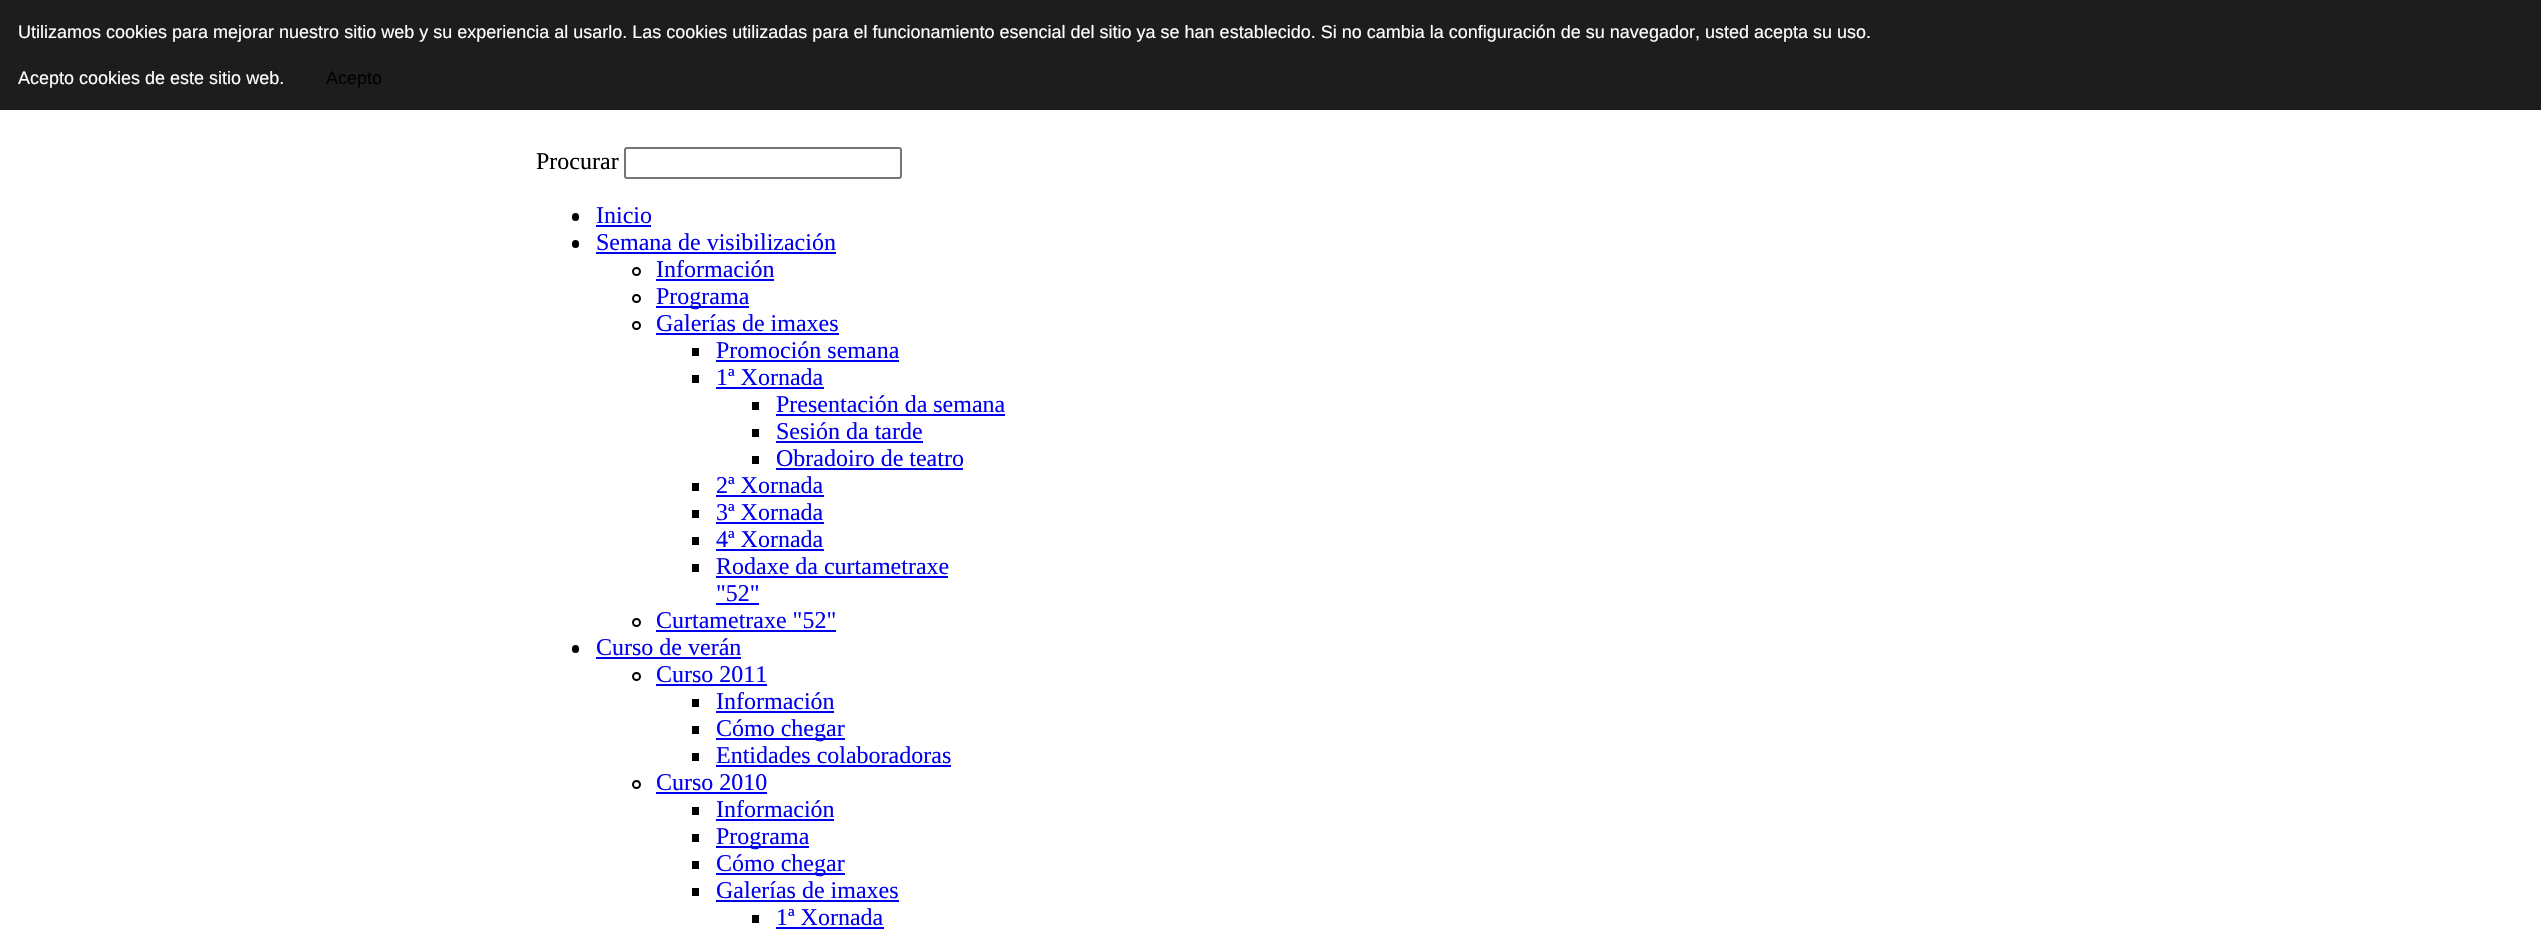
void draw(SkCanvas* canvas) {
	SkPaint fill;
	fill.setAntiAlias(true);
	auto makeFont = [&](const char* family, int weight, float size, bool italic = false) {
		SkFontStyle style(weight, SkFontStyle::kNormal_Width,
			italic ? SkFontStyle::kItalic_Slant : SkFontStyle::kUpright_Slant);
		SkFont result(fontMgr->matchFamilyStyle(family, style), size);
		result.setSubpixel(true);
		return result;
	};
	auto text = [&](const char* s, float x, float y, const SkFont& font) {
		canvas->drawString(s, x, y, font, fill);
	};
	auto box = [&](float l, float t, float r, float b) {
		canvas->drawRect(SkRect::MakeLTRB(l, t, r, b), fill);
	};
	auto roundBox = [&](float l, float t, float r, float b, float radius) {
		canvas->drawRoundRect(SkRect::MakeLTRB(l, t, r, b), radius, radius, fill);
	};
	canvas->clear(0xFFFFFFFF);
	fill.setColor(0xFF1D1D1D);
	box(0, 0, 2541, 110);
	fill.setStyle(SkPaint::kStroke_Style);
	fill.setStrokeWidth(2);
	fill.setColor(0xFF767676);
	canvas->drawRoundRect(SkRect::MakeLTRB(625, 148, 901, 178), 2, 2, fill);
	fill.setStyle(SkPaint::kFill_Style);
	fill.setColor(0xFF000000);
	roundBox(572, 213, 579, 221, 3.5f);
	fill.setColor(0xFF0000EE);
	box(596, 225, 651, 227);
	fill.setColor(0xFF000000);
	roundBox(572, 240, 579, 248, 3.5f);
	fill.setColor(0xFF0000EE);
	box(596, 252, 836, 254);
	fill.setStyle(SkPaint::kStroke_Style);
	fill.setColor(0xFF000000);
	canvas->drawCircle(636.5f, 271.5f, 3.5f, fill);
	fill.setStyle(SkPaint::kFill_Style);
	fill.setColor(0xFF0000EE);
	box(656, 279, 774, 281);
	fill.setStyle(SkPaint::kStroke_Style);
	fill.setColor(0xFF000000);
	canvas->drawCircle(636.5f, 298.5f, 3.5f, fill);
	fill.setStyle(SkPaint::kFill_Style);
	fill.setColor(0xFF0000EE);
	box(656, 306, 749, 308);
	fill.setStyle(SkPaint::kStroke_Style);
	fill.setColor(0xFF000000);
	canvas->drawCircle(636.5f, 325.5f, 3.5f, fill);
	fill.setStyle(SkPaint::kFill_Style);
	fill.setColor(0xFF0000EE);
	box(656, 333, 839, 335);
	fill.setColor(0xFF000000);
	box(692, 348, 699, 356);
	fill.setColor(0xFF0000EE);
	box(716, 360, 899, 362);
	fill.setColor(0xFF000000);
	box(692, 375, 699, 383);
	fill.setColor(0xFF0000EE);
	box(716, 387, 824, 389);
	fill.setColor(0xFF000000);
	box(752, 402, 759, 410);
	fill.setColor(0xFF0000EE);
	box(776, 414, 1005, 416);
	fill.setColor(0xFF000000);
	box(752, 429, 759, 437);
	fill.setColor(0xFF0000EE);
	box(776, 441, 923, 443);
	fill.setColor(0xFF000000);
	box(752, 456, 759, 464);
	fill.setColor(0xFF0000EE);
	box(776, 468, 963, 470);
	fill.setColor(0xFF000000);
	box(692, 483, 699, 491);
	fill.setColor(0xFF0000EE);
	box(716, 495, 824, 497);
	fill.setColor(0xFF000000);
	box(692, 510, 699, 518);
	fill.setColor(0xFF0000EE);
	box(716, 522, 824, 524);
	fill.setColor(0xFF000000);
	box(692, 537, 699, 545);
	fill.setColor(0xFF0000EE);
	box(716, 549, 824, 551);
	fill.setColor(0xFF000000);
	box(692, 564, 699, 572);
	fill.setColor(0xFF0000EE);
	box(716, 576, 948, 578);
	box(716, 603, 759, 605);
	fill.setStyle(SkPaint::kStroke_Style);
	fill.setColor(0xFF000000);
	canvas->drawCircle(636.5f, 622.5f, 3.5f, fill);
	fill.setStyle(SkPaint::kFill_Style);
	fill.setColor(0xFF0000EE);
	box(656, 630, 836, 632);
	fill.setColor(0xFF000000);
	roundBox(572, 645, 579, 653, 3.5f);
	fill.setColor(0xFF0000EE);
	box(596, 657, 741, 659);
	fill.setStyle(SkPaint::kStroke_Style);
	fill.setColor(0xFF000000);
	canvas->drawCircle(636.5f, 676.5f, 3.5f, fill);
	fill.setStyle(SkPaint::kFill_Style);
	fill.setColor(0xFF0000EE);
	box(656, 684, 767, 686);
	fill.setColor(0xFF000000);
	box(692, 699, 699, 707);
	fill.setColor(0xFF0000EE);
	box(716, 711, 834, 713);
	fill.setColor(0xFF000000);
	box(692, 726, 699, 734);
	fill.setColor(0xFF0000EE);
	box(716, 738, 845, 740);
	fill.setColor(0xFF000000);
	box(692, 753, 699, 761);
	fill.setColor(0xFF0000EE);
	box(716, 765, 951, 767);
	fill.setStyle(SkPaint::kStroke_Style);
	fill.setColor(0xFF000000);
	canvas->drawCircle(636.5f, 784.5f, 3.5f, fill);
	fill.setStyle(SkPaint::kFill_Style);
	fill.setColor(0xFF0000EE);
	box(656, 792, 767, 794);
	fill.setColor(0xFF000000);
	box(692, 807, 699, 815);
	fill.setColor(0xFF0000EE);
	box(716, 819, 834, 821);
	fill.setColor(0xFF000000);
	box(692, 834, 699, 842);
	fill.setColor(0xFF0000EE);
	box(716, 846, 809, 848);
	fill.setColor(0xFF000000);
	box(692, 861, 699, 869);
	fill.setColor(0xFF0000EE);
	box(716, 873, 845, 875);
	fill.setColor(0xFF000000);
	box(692, 888, 699, 896);
	fill.setColor(0xFF0000EE);
	box(716, 900, 899, 902);
	fill.setColor(0xFF000000);
	box(752, 915, 759, 923);
	fill.setColor(0xFF0000EE);
	box(776, 927, 884, 929);
	auto font1 = makeFont("Liberation Sans", 400, 18);
	fill.setColor(0xFFFFFFFF);
	text("Utilizamos cookies para mejorar nuestro sitio web y su experiencia al usarlo. Las cookies utilizadas para el funcionamiento esencial del sitio ya se han establecido. Si no cambia la configuración de su navegador, usted acepta su uso.", 18, 38, font1);
	text("Acepto cookies de este sitio web.", 18, 84, font1);
	fill.setColor(0xFF000000);
	text("Acepto", 326, 84, font1);
	auto font2 = makeFont("Liberation Serif", 400, 24);
	text("Procurar", 536, 169, font2);
	fill.setColor(0xFF0000EE);
	text("Inicio", 596, 223, font2);
	text("Semana de visibilización", 596, 250, font2);
	text("Información", 656, 277, font2);
	text("Programa", 656, 304, font2);
	text("Galerías de imaxes", 656, 331, font2);
	text("Promoción semana", 716, 358, font2);
	text("1ª Xornada", 716, 385, font2);
	text("Presentación da semana", 776, 412, font2);
	text("Sesión da tarde", 776, 439, font2);
	text("Obradoiro de teatro", 776, 466, font2);
	text("2ª Xornada", 716, 493, font2);
	text("3ª Xornada", 716, 520, font2);
	text("4ª Xornada", 716, 547, font2);
	text("Rodaxe da curtametraxe", 716, 574, font2);
	text("\"52\"", 716, 601, font2);
	text("Curtametraxe \"52\"", 656, 628, font2);
	text("Curso de verán", 596, 655, font2);
	text("Curso 2011", 656, 682, font2);
	text("Información", 716, 709, font2);
	text("Cómo chegar", 716, 736, font2);
	text("Entidades colaboradoras", 716, 763, font2);
	text("Curso 2010", 656, 790, font2);
	text("Información", 716, 817, font2);
	text("Programa", 716, 844, font2);
	text("Cómo chegar", 716, 871, font2);
	text("Galerías de imaxes", 716, 898, font2);
	text("1ª Xornada", 776, 925, font2);
}
